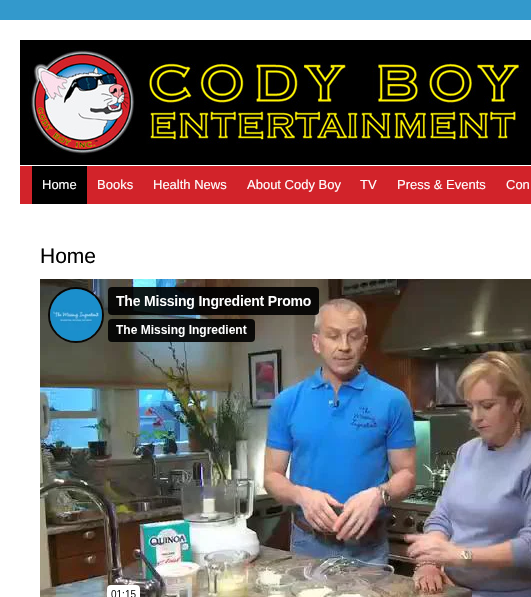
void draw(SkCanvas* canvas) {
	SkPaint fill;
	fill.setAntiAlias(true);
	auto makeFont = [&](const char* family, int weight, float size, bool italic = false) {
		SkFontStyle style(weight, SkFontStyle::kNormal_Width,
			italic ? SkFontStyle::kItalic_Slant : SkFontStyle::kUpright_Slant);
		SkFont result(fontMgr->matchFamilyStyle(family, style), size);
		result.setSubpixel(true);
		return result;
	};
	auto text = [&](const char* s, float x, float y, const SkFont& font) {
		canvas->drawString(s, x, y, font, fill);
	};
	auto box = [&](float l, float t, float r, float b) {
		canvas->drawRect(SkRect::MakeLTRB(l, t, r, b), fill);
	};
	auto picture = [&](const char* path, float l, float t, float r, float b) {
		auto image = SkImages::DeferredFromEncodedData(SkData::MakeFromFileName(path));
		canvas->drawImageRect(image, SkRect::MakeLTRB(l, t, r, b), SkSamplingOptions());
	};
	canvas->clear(0xFF3399CC);
	fill.setColor(0xFFFFFFFF);
	box(0, 20, 531, 597);
	picture("image0.png", 20, 40, 531, 165);
	fill.setColor(0xFFD2232A);
	box(20, 166, 531, 204);
	fill.setColor(0xFF000000);
	box(32, 166, 87, 204);
	picture("image1.png", 40, 279, 531, 597);
	auto font1 = makeFont("Liberation Sans", 400, 13);
	fill.setColor(0xFFFFFFFF);
	text("Home", 42, 189, font1);
	text("Books", 97, 189, font1);
	text("Health News", 153, 189, font1);
	text("About Cody Boy", 247, 189, font1);
	text("TV", 360, 189, font1);
	text("Press & Events", 397, 189, font1);
	text("Con", 506, 189, font1);
	auto font2 = makeFont("Liberation Sans", 400, 21);
	fill.setColor(0xFF000000);
	text("Home", 40, 263, font2);
}
